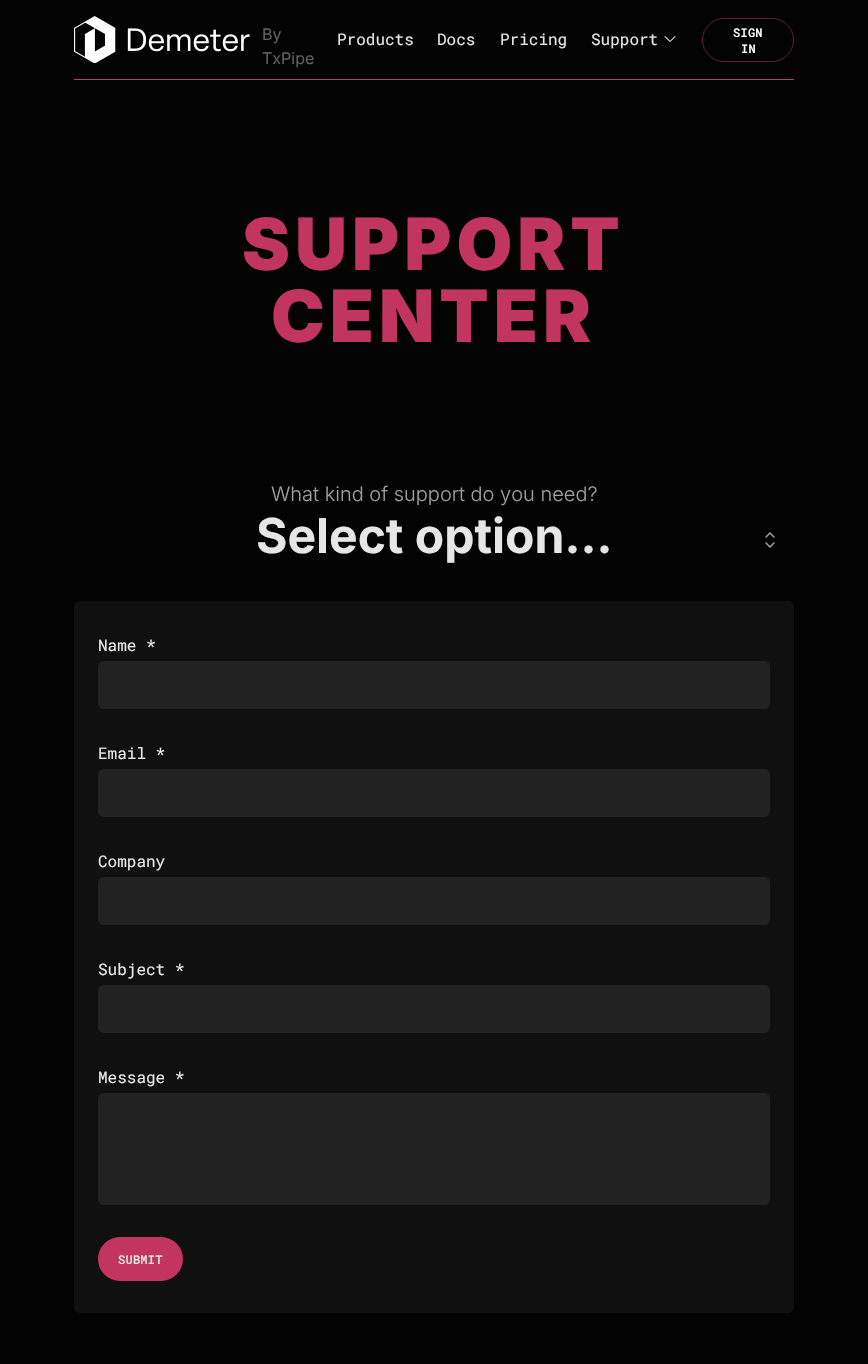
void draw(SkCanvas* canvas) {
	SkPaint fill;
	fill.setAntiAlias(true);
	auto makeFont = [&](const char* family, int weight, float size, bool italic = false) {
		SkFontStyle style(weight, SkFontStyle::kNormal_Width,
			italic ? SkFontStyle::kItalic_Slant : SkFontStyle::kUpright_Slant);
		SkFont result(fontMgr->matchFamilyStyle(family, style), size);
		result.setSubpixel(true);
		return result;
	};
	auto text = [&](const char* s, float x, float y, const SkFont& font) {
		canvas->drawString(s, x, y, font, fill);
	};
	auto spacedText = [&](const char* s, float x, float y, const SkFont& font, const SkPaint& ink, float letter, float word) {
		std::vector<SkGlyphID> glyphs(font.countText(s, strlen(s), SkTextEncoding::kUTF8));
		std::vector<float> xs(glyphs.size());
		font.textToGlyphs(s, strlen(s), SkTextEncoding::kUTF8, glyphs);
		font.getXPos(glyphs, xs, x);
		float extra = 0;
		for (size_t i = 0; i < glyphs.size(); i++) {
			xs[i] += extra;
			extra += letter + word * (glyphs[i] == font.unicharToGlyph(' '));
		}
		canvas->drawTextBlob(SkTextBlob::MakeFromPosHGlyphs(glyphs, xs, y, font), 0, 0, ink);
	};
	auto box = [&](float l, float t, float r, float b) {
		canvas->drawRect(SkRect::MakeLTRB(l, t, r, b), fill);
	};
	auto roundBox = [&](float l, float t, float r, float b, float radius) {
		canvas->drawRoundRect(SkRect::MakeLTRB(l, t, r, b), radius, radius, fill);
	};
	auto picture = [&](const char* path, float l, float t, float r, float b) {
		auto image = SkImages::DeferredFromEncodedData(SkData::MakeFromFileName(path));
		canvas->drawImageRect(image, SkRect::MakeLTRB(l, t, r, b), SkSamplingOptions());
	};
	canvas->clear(0xFF030303);
	fill.setColor(0xFFB44261);
	box(74, 79, 794, 80);
	picture("image0.png", 74, 16, 250, 63);
	picture("image1.png", 664, 36, 676, 42);
	fill.setStyle(SkPaint::kStroke_Style);
	fill.setStrokeWidth(1);
	fill.setColor(0xFF631C32);
	canvas->drawRoundRect(SkRect::MakeLTRB(702.5f, 18.5f, 793.5f, 61.5f), 21.5f, 21.5f, fill);
	fill.setStrokeWidth(1.5f);
	fill.setStrokeCap(SkPaint::kRound_Cap);
	fill.setStrokeJoin(SkPaint::kRound_Join);
	fill.setColor(0xFFA0A0A0);
	canvas->drawPath(SkPathBuilder().moveTo(766, 543).lineTo(770, 547).lineTo(774, 543).moveTo(766, 537).lineTo(770, 533).lineTo(774, 537).detach(), fill);
	fill.setStyle(SkPaint::kFill_Style);
	fill.setColor(0xFF101010);
	roundBox(74, 601, 794, 1313, 6);
	fill.setColor(0xFF222222);
	roundBox(98, 661, 770, 709, 6);
	roundBox(98, 769, 770, 817, 6);
	roundBox(98, 877, 770, 925, 6);
	roundBox(98, 985, 770, 1033, 6);
	roundBox(98, 1093, 770, 1205, 6);
	fill.setColor(0xFFC23561);
	roundBox(98, 1237, 183, 1281, 22);
	auto font1 = makeFont("Inter", 400, 16);
	fill.setColor(0xFF606060);
	text("By", 262, 40, font1);
	text("TxPipe", 262, 64, font1);
	auto font2 = makeFont("Roboto Mono", 400, 16);
	fill.setColor(0xFFE6E6E6);
	text("Products", 337, 45, font2);
	text("Docs", 437, 45, font2);
	text("Pricing", 500, 45, font2);
	text("Support", 591, 45, font2);
	auto font3 = makeFont("Roboto Mono", 500, 12);
	fill.setColor(0xFFFFFFFF);
	spacedText("SIGN", 733, 37, font3, fill, 0.25f, 0);
	spacedText("IN", 741, 53, font3, fill, 0.25f, 0);
	auto font4 = makeFont("Inter", 900, 72);
	fill.setColor(0xFFC23561);
	spacedText("SUPPORT", 242, 270, font4, fill, 5, 0);
	spacedText("CENTER", 271, 342, font4, fill, 5, 0);
	auto font5 = makeFont("Inter", 300, 20);
	fill.setColor(0xFFA0A0A0);
	text("What kind of support do you need?", 271, 501, font5);
	auto font6 = makeFont("Inter", 700, 48);
	fill.setColor(0xFFE6E6E6);
	text("Select option...", 256, 553, font6);
	text("Name *", 98, 651, font2);
	text("Email *", 98, 759, font2);
	text("Company", 98, 867, font2);
	text("Subject *", 98, 975, font2);
	text("Message *", 98, 1083, font2);
	spacedText("SUBMIT", 118, 1264, font3, fill, 0.25f, 0);
}
